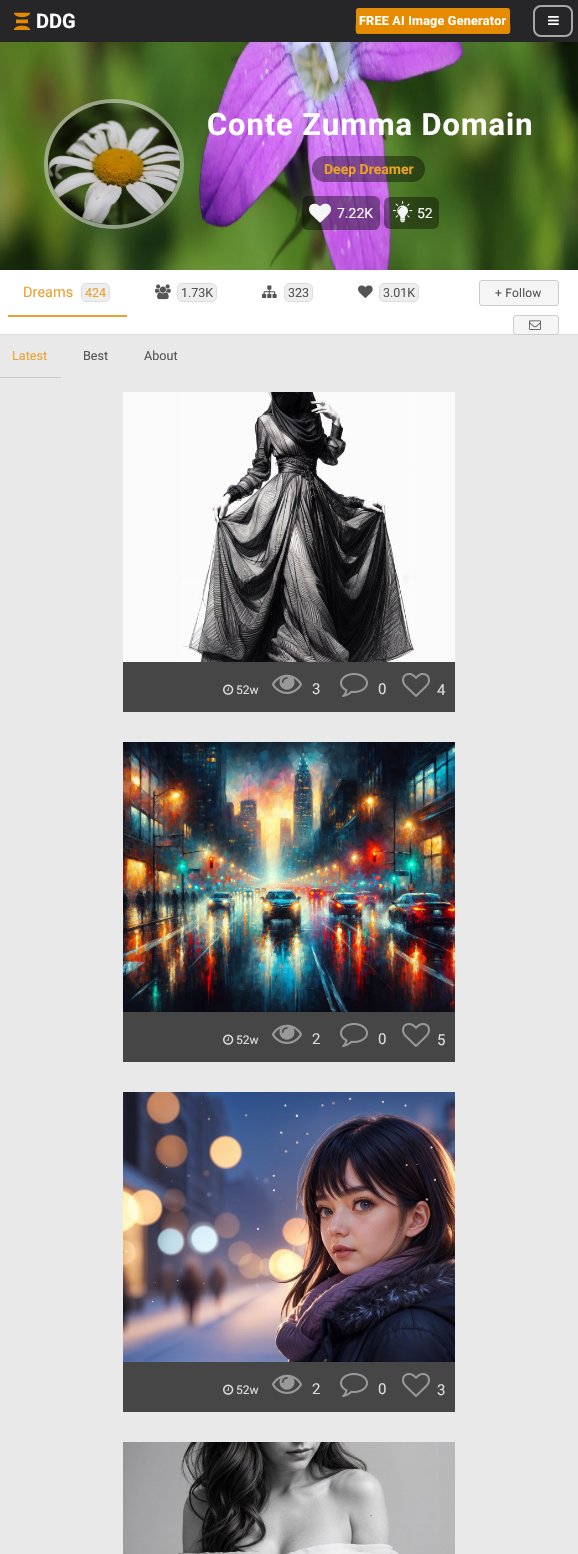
void draw(SkCanvas* canvas) {
	SkPaint fill;
	fill.setAntiAlias(true);
	auto makeFont = [&](const char* family, int weight, float size, bool italic = false) {
		SkFontStyle style(weight, SkFontStyle::kNormal_Width,
			italic ? SkFontStyle::kItalic_Slant : SkFontStyle::kUpright_Slant);
		SkFont result(fontMgr->matchFamilyStyle(family, style), size);
		result.setSubpixel(true);
		return result;
	};
	auto text = [&](const char* s, float x, float y, const SkFont& font) {
		canvas->drawString(s, x, y, font, fill);
	};
	auto spacedText = [&](const char* s, float x, float y, const SkFont& font, const SkPaint& ink, float letter, float word) {
		std::vector<SkGlyphID> glyphs(font.countText(s, strlen(s), SkTextEncoding::kUTF8));
		std::vector<float> xs(glyphs.size());
		font.textToGlyphs(s, strlen(s), SkTextEncoding::kUTF8, glyphs);
		font.getXPos(glyphs, xs, x);
		float extra = 0;
		for (size_t i = 0; i < glyphs.size(); i++) {
			xs[i] += extra;
			extra += letter + word * (glyphs[i] == font.unicharToGlyph(' '));
		}
		canvas->drawTextBlob(SkTextBlob::MakeFromPosHGlyphs(glyphs, xs, y, font), 0, 0, ink);
	};
	auto box = [&](float l, float t, float r, float b) {
		canvas->drawRect(SkRect::MakeLTRB(l, t, r, b), fill);
	};
	auto roundBox = [&](float l, float t, float r, float b, float radius) {
		canvas->drawRoundRect(SkRect::MakeLTRB(l, t, r, b), radius, radius, fill);
	};
	auto picture = [&](const char* path, float l, float t, float r, float b) {
		auto image = SkImages::DeferredFromEncodedData(SkData::MakeFromFileName(path));
		canvas->drawImageRect(image, SkRect::MakeLTRB(l, t, r, b), SkSamplingOptions());
	};
	canvas->clear(0xFFE9E9E9);
	fill.setColor(0xFF262628);
	box(0, 0, 578, 42);
	picture("image0.png", 13, 12, 31, 30);
	fill.setColor(0xFFE68A00);
	roundBox(356, 8, 510, 34, 3);
	fill.setStyle(SkPaint::kStroke_Style);
	fill.setStrokeWidth(1);
	fill.setColor(0xFFD68400);
	canvas->drawPath(SkPathBuilder().moveTo(509, 33).lineTo(507, 33.5f).lineTo(359, 33.5f).lineTo(357, 33).detach(), fill);
	fill.setColor(0xFFDD8E11);
	canvas->drawPath(SkPathBuilder().moveTo(357, 33).cubicTo(355.5f, 31, 356.5f, 23.5f, 356.5f, 21).lineTo(356.5f, 14.5f).cubicTo(356.5f, 12.5f, 356, 8.5f, 359, 8.5f).lineTo(507, 8.5f).cubicTo(510, 8.5f, 509.5f, 12.5f, 509.5f, 14.5f).lineTo(509.5f, 21).cubicTo(509.5f, 23.5f, 510.5f, 31, 509, 33).detach(), fill);
	fill.setStrokeWidth(2);
	fill.setColor(0xFFA8A8A9);
	canvas->drawRoundRect(SkRect::MakeLTRB(534, 6, 572, 36), 7, 7, fill);
	picture("image1.png", 548, 16, 559, 25);
	picture("image2.png", 0, 42, 578, 270);
	fill.setStrokeWidth(4);
	fill.setColor(0x99CCCCCC);
	canvas->drawPath(SkPathBuilder().moveTo(114, 101).cubicTo(151.5f, 101, 182, 129, 182, 164).cubicTo(182, 199, 151.5f, 227, 114, 227).cubicTo(76.5f, 227, 46, 199, 46, 164).cubicTo(46, 129, 76.5f, 101, 114, 101).close().detach(), fill);
	picture("image3.png", 48, 103, 180, 225);
	fill.setStyle(SkPaint::kFill_Style);
	fill.setColor(0x66000000);
	roundBox(312, 156, 425, 182, 13);
	roundBox(302, 196, 380, 230, 6);
	picture("image4.png", 309, 203, 331, 223);
	roundBox(384, 197, 439, 229, 6);
	picture("image5.png", 393, 200, 413, 223);
	fill.setColor(0xFFFFFFFF);
	box(0, 270, 578, 334);
	fill.setColor(0xFFDCDCDC);
	box(0, 334, 578, 335);
	fill.setColor(0xFFEBA133);
	box(8, 315, 127, 317);
	fill.setColor(0xFFEEEEEE);
	canvas->drawRoundRect(SkRect::MakeLTRB(81.5f, 283.5f, 109.5f, 301.5f), 4.5f, 4.5f, fill);
	fill.setStyle(SkPaint::kStroke_Style);
	fill.setStrokeWidth(1);
	fill.setColor(0xFFDDDDDD);
	canvas->drawRoundRect(SkRect::MakeLTRB(81.5f, 283.5f, 109.5f, 301.5f), 4.5f, 4.5f, fill);
	picture("image6.png", 155, 284, 171, 300);
	fill.setStyle(SkPaint::kFill_Style);
	fill.setColor(0xFFEEEEEE);
	canvas->drawRoundRect(SkRect::MakeLTRB(177.5f, 283.5f, 216.5f, 301.5f), 4.5f, 4.5f, fill);
	fill.setStyle(SkPaint::kStroke_Style);
	fill.setColor(0xFFDDDDDD);
	canvas->drawRoundRect(SkRect::MakeLTRB(177.5f, 283.5f, 216.5f, 301.5f), 4.5f, 4.5f, fill);
	picture("image7.png", 262, 285, 277, 299);
	fill.setStyle(SkPaint::kFill_Style);
	fill.setColor(0xFFEEEEEE);
	canvas->drawRoundRect(SkRect::MakeLTRB(284.5f, 283.5f, 312.5f, 301.5f), 4.5f, 4.5f, fill);
	fill.setStyle(SkPaint::kStroke_Style);
	fill.setColor(0xFFDDDDDD);
	canvas->drawRoundRect(SkRect::MakeLTRB(284.5f, 283.5f, 312.5f, 301.5f), 4.5f, 4.5f, fill);
	picture("image8.png", 358, 285, 373, 298);
	fill.setStyle(SkPaint::kFill_Style);
	fill.setColor(0xFFEEEEEE);
	canvas->drawRoundRect(SkRect::MakeLTRB(379.5f, 283.5f, 418.5f, 301.5f), 4.5f, 4.5f, fill);
	fill.setStyle(SkPaint::kStroke_Style);
	fill.setColor(0xFFDDDDDD);
	canvas->drawRoundRect(SkRect::MakeLTRB(379.5f, 283.5f, 418.5f, 301.5f), 4.5f, 4.5f, fill);
	fill.setStyle(SkPaint::kFill_Style);
	fill.setColor(0xFFF5F5F5);
	canvas->drawRoundRect(SkRect::MakeLTRB(479.5f, 280.5f, 558.5f, 305.5f), 2.5f, 2.5f, fill);
	fill.setStyle(SkPaint::kStroke_Style);
	fill.setColor(0xFFCCCCCC);
	canvas->drawRoundRect(SkRect::MakeLTRB(479.5f, 280.5f, 558.5f, 305.5f), 2.5f, 2.5f, fill);
	fill.setStyle(SkPaint::kFill_Style);
	fill.setColor(0xFFF5F5F5);
	canvas->drawRoundRect(SkRect::MakeLTRB(513.5f, 315.5f, 558.5f, 334.5f), 2.5f, 2.5f, fill);
	fill.setStyle(SkPaint::kStroke_Style);
	fill.setColor(0xFFCCCCCC);
	canvas->drawRoundRect(SkRect::MakeLTRB(513.5f, 315.5f, 558.5f, 334.5f), 2.5f, 2.5f, fill);
	picture("image9.png", 529, 320, 541, 330);
	fill.setStyle(SkPaint::kFill_Style);
	box(0, 377, 61, 378);
	fill.setColor(0xFFFAFAFA);
	box(123, 392, 455, 662);
	picture("image10.png", 181, 392, 415, 662);
	fill.setColor(0xFF464646);
	box(123, 662, 455, 712);
	picture("image11.png", 223, 684, 234, 695);
	picture("image12.png", 272, 674, 302, 694);
	picture("image13.png", 340, 673, 368, 697);
	picture("image14.png", 402, 673, 430, 697);
	picture("image15.png", 123, 742, 455, 1012);
	box(123, 1012, 455, 1062);
	picture("image11.png", 223, 1034, 234, 1045);
	picture("image12.png", 272, 1024, 302, 1044);
	picture("image13.png", 340, 1023, 368, 1047);
	picture("image14.png", 402, 1023, 430, 1047);
	picture("image16.png", 123, 1092, 455, 1362);
	box(123, 1362, 455, 1412);
	picture("image11.png", 223, 1384, 234, 1395);
	picture("image12.png", 272, 1374, 302, 1394);
	picture("image13.png", 340, 1373, 368, 1397);
	picture("image14.png", 402, 1373, 430, 1397);
	picture("image17.png", 123, 1442, 455, 1554);
	auto font1 = makeFont("Roboto", 700, 20);
	fill.setColor(0xFFFFFFFF);
	text("DDG", 36, 28, font1);
	auto font2 = makeFont("Roboto", 700, 12.6f);
	spacedText("FREE AI Image Generator", 359, 25, font2, fill, 0.2f, 0);
	auto font3 = makeFont("Roboto", 700, 30.75f);
	spacedText("Conte Zumma Domain", 207, 135, font3, fill, 1, 0);
	auto font4 = makeFont("Roboto", 700, 14);
	fill.setColor(0xFFEBA123);
	text("Deep Dreamer", 324, 174, font4);
	auto font5 = makeFont("Roboto", 400, 14);
	fill.setColor(0xFFF6F6F6);
	text("7.22K", 337, 218, font5);
	text("52", 417, 218, font5);
	auto font6 = makeFont("Roboto", 400, 14.5f);
	fill.setColor(0xFFEBA133);
	text("Dreams", 23, 297, font6);
	auto font7 = makeFont("Roboto", 400, 12.5f);
	text("424", 85, 297, font7);
	fill.setColor(0xFF555555);
	text("1.73K", 181, 297, font7);
	text("323", 288, 297, font7);
	text("3.01K", 383, 297, font7);
	auto font8 = makeFont("Roboto", 400, 12);
	spacedText("+ Follow", 495, 297, font8, fill, 0.2f, 0);
	auto font9 = makeFont("Roboto", 400, 12.6f);
	fill.setColor(0xFFEBA133);
	text("Latest", 12, 360, font9);
	fill.setColor(0xFF555555);
	text("Best", 83, 360, font9);
	text("About", 144, 360, font9);
	fill.setColor(0xFFDDDDDD);
	text("52w", 236, 694, font8);
	auto font10 = makeFont("Roboto", 400, 15);
	text("3", 312, 694, font10);
	text("0", 378, 694, font10);
	text("4", 437, 695, font10);
	text("52w", 236, 1044, font8);
	text("2", 312, 1044, font10);
	text("0", 378, 1044, font10);
	text("5", 437, 1045, font10);
	text("52w", 236, 1394, font8);
	text("2", 312, 1394, font10);
	text("0", 378, 1394, font10);
	text("3", 437, 1395, font10);
}
